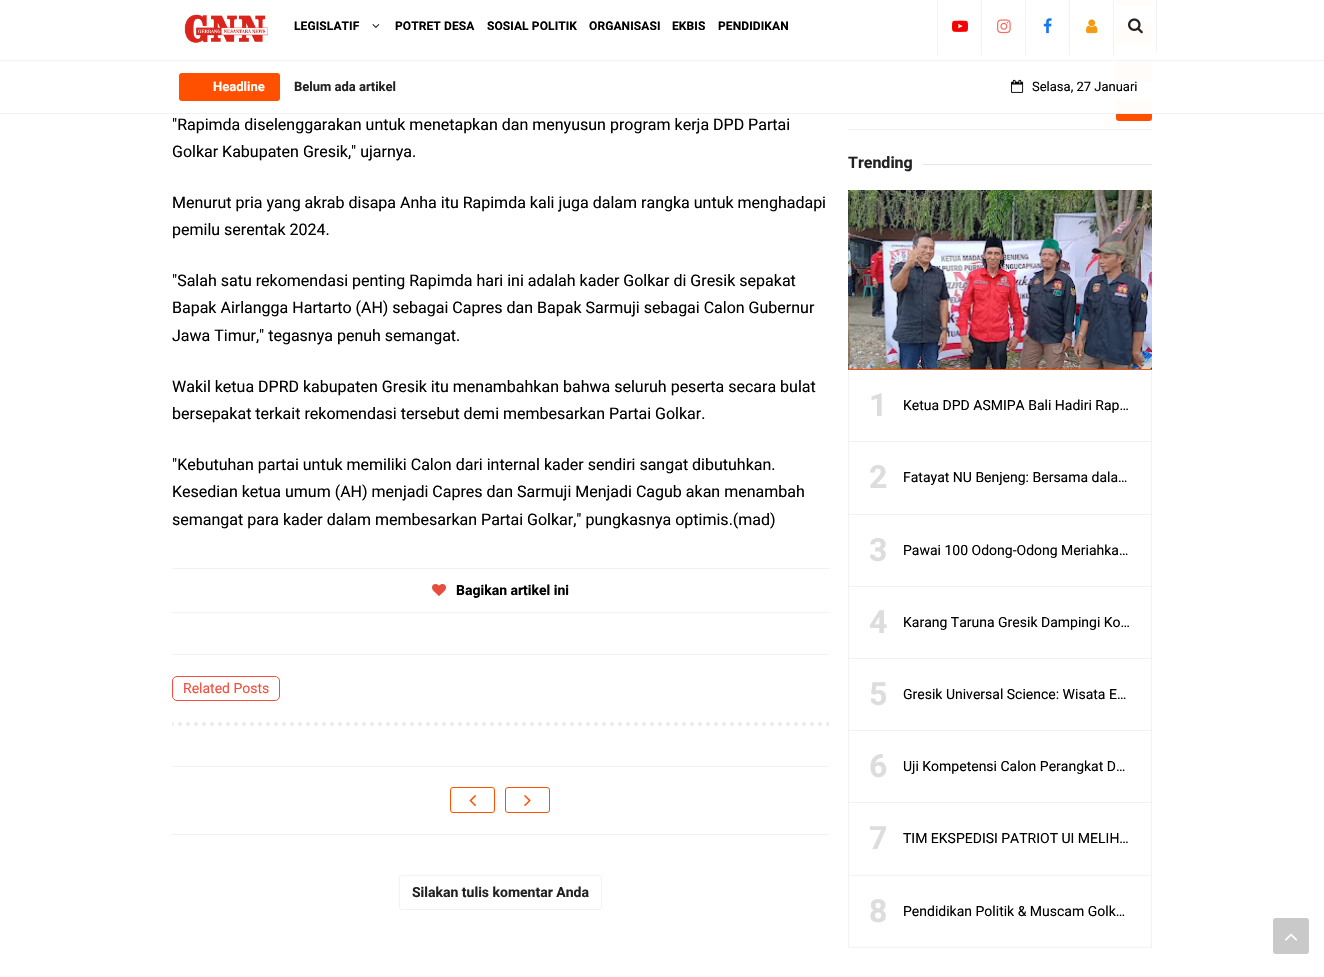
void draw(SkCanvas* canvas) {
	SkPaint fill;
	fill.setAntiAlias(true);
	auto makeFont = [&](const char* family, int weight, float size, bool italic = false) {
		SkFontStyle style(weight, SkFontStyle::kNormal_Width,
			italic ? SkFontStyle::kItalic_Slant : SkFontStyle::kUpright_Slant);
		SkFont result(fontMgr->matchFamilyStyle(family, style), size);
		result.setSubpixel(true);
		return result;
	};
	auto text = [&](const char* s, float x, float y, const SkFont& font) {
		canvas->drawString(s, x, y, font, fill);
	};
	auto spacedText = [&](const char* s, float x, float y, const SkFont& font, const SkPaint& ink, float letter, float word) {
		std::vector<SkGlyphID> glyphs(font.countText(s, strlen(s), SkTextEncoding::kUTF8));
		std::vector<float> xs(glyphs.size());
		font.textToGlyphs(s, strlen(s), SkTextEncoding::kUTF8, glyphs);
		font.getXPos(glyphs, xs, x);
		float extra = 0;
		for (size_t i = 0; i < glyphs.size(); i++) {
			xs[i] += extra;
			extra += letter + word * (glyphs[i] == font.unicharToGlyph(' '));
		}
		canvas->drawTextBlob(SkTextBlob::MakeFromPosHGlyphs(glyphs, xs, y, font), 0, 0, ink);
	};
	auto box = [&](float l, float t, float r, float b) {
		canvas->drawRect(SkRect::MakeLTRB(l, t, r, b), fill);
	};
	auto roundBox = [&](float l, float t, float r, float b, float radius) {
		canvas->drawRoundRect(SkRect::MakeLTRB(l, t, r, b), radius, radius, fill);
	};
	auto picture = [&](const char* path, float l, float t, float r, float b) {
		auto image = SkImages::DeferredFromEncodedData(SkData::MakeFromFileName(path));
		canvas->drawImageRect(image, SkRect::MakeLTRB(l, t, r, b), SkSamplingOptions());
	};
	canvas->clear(0xFFFFFFFF);
	fill.setColor(0xFFF2F2F2);
	box(848, 14, 1152, 15);
	fill.setColor(0xFFFF5000);
	roundBox(1116, -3, 1152, 6, 3);
	fill.setColor(0xFFF2F2F2);
	box(848, 52, 1152, 53);
	fill.setColor(0xFFFF5000);
	roundBox(1116, 23, 1152, 44, 3);
	fill.setColor(0xFFF2F2F2);
	box(848, 91, 1152, 92);
	fill.setColor(0xFFFF5000);
	roundBox(1116, 61, 1152, 83, 3);
	roundBox(1116, 100, 1152, 121, 3);
	fill.setColor(0xFAFFFFFF);
	box(848, 0, 1152, 114);
	picture("image0.png", 184, 14, 268, 43);
	picture("image1.png", 372, 24, 380, 28);
	fill.setColor(0xFFF2F2F2);
	box(981, 0, 982, 55);
	box(937, 0, 938, 55);
	picture("image2.png", 952, 20, 968, 32);
	box(1025, 0, 1026, 55);
	picture("image3.png", 997, 19, 1011, 34);
	box(1069, 0, 1070, 55);
	picture("image4.png", 1043, 18, 1052, 34);
	box(1113, 0, 1114, 55);
	picture("image5.png", 1086, 19, 1098, 34);
	box(1156, 0, 1157, 52);
	picture("image6.png", 1128, 18, 1143, 34);
	box(0, 60, 1324, 61);
	fill.setColor(0x0D000000);
	box(0, 113, 1324, 114);
	fill.setColor(0xFFFF5000);
	roundBox(179, 73, 280, 101, 3);
	picture("image7.png", 1011, 79, 1024, 93);
	fill.setColor(0xFFF2F2F2);
	box(172, 568, 829, 569);
	box(172, 654, 829, 655);
	box(172, 612, 829, 613);
	picture("image8.png", 432, 584, 446, 596);
	fill.setStyle(SkPaint::kStroke_Style);
	fill.setStrokeWidth(1);
	fill.setColor(0xFFF64C3B);
	canvas->drawRoundRect(SkRect::MakeLTRB(172.5f, 676.5f, 279.5f, 700.5f), 4.5f, 4.5f, fill);
	canvas->save();
	canvas->clipRect(SkRect::MakeLTRB(172, 0, 829, 746));
	fill.setStrokeWidth(4);
	fill.setStrokeCap(SkPaint::kRound_Cap);
	fill.setColor(0xFFEBEBEB);
	fill.setPathEffect(SkDashPathEffect::Make({{0, 8}}, 0));
	canvas->drawPath(SkPathBuilder().moveTo(172, 724).lineTo(829, 724).detach(), fill);
	fill.setPathEffect(nullptr);
	canvas->restore();
	fill.setStyle(SkPaint::kFill_Style);
	fill.setColor(0xFFF2F2F2);
	box(172, 766, 829, 767);
	box(172, 834, 829, 835);
	fill.setStyle(SkPaint::kStroke_Style);
	fill.setStrokeWidth(1);
	fill.setStrokeCap(SkPaint::kButt_Cap);
	fill.setColor(0xFFFF5000);
	canvas->drawRoundRect(SkRect::MakeLTRB(450.5f, 787.5f, 494.5f, 812.5f), 2.5f, 2.5f, fill);
	picture("image9.png", 469, 795, 476, 807);
	canvas->drawRoundRect(SkRect::MakeLTRB(505.5f, 787.5f, 549.5f, 812.5f), 2.5f, 2.5f, fill);
	picture("image10.png", 524, 795, 531, 807);
	fill.setColor(0xFFF2F2F2);
	canvas->drawRoundRect(SkRect::MakeLTRB(399.5f, 875.5f, 601.5f, 909.5f), 2.5f, 2.5f, fill);
	fill.setStyle(SkPaint::kFill_Style);
	box(848, 129, 1152, 130);
	fill.setColor(0xFFE6E6E6);
	box(923, 164, 1152, 165);
	fill.setColor(0xFFFF5000);
	box(848, 369, 1152, 370);
	picture("image11.png", 848, 190, 1152, 369);
	fill.setColor(0xFFF2F2F2);
	canvas->drawPath(SkPathBuilder().moveTo(1152, 370).lineTo(1152, 442).lineTo(1151, 441).lineTo(1151, 370).close().detach(), fill);
	fill.setColor(0x0D000000);
	canvas->drawPath(SkPathBuilder().moveTo(1152, 442).lineTo(848, 442).lineTo(849, 441).lineTo(1151, 441).close().detach(), fill);
	canvas->drawPath(SkPathBuilder().moveTo(848, 442).lineTo(848, 370).lineTo(849, 370).lineTo(849, 441).close().detach(), fill);
	fill.setColor(0xFFF2F2F2);
	canvas->drawPath(SkPathBuilder().moveTo(1152, 442).lineTo(1152, 515).lineTo(1151, 514).lineTo(1151, 442).close().detach(), fill);
	fill.setColor(0x0D000000);
	canvas->drawPath(SkPathBuilder().moveTo(1152, 515).lineTo(848, 515).lineTo(849, 514).lineTo(1151, 514).close().detach(), fill);
	canvas->drawPath(SkPathBuilder().moveTo(848, 515).lineTo(848, 442).lineTo(849, 442).lineTo(849, 514).close().detach(), fill);
	fill.setColor(0xFFF2F2F2);
	canvas->drawPath(SkPathBuilder().moveTo(1152, 515).lineTo(1152, 587).lineTo(1151, 586).lineTo(1151, 515).close().detach(), fill);
	fill.setColor(0x0D000000);
	canvas->drawPath(SkPathBuilder().moveTo(1152, 587).lineTo(848, 587).lineTo(849, 586).lineTo(1151, 586).close().detach(), fill);
	canvas->drawPath(SkPathBuilder().moveTo(848, 587).lineTo(848, 515).lineTo(849, 515).lineTo(849, 586).close().detach(), fill);
	fill.setColor(0xFFF2F2F2);
	canvas->drawPath(SkPathBuilder().moveTo(1152, 587).lineTo(1152, 659).lineTo(1151, 658).lineTo(1151, 587).close().detach(), fill);
	fill.setColor(0x0D000000);
	canvas->drawPath(SkPathBuilder().moveTo(1152, 659).lineTo(848, 659).lineTo(849, 658).lineTo(1151, 658).close().detach(), fill);
	canvas->drawPath(SkPathBuilder().moveTo(848, 659).lineTo(848, 587).lineTo(849, 587).lineTo(849, 658).close().detach(), fill);
	fill.setColor(0xFFF2F2F2);
	canvas->drawPath(SkPathBuilder().moveTo(1152, 659).lineTo(1152, 731).lineTo(1151, 730).lineTo(1151, 659).close().detach(), fill);
	fill.setColor(0x0D000000);
	canvas->drawPath(SkPathBuilder().moveTo(1152, 731).lineTo(848, 731).lineTo(849, 730).lineTo(1151, 730).close().detach(), fill);
	canvas->drawPath(SkPathBuilder().moveTo(848, 731).lineTo(848, 659).lineTo(849, 659).lineTo(849, 730).close().detach(), fill);
	fill.setColor(0xFFF2F2F2);
	canvas->drawPath(SkPathBuilder().moveTo(1152, 731).lineTo(1152, 803).lineTo(1151, 802).lineTo(1151, 731).close().detach(), fill);
	fill.setColor(0x0D000000);
	canvas->drawPath(SkPathBuilder().moveTo(1152, 803).lineTo(848, 803).lineTo(849, 802).lineTo(1151, 802).close().detach(), fill);
	canvas->drawPath(SkPathBuilder().moveTo(848, 803).lineTo(848, 731).lineTo(849, 731).lineTo(849, 802).close().detach(), fill);
	fill.setColor(0xFFF2F2F2);
	canvas->drawPath(SkPathBuilder().moveTo(1152, 803).lineTo(1152, 876).lineTo(1151, 875).lineTo(1151, 803).close().detach(), fill);
	fill.setColor(0x0D000000);
	canvas->drawPath(SkPathBuilder().moveTo(1152, 876).lineTo(848, 876).lineTo(849, 875).lineTo(1151, 875).close().detach(), fill);
	canvas->drawPath(SkPathBuilder().moveTo(848, 876).lineTo(848, 803).lineTo(849, 803).lineTo(849, 875).close().detach(), fill);
	fill.setColor(0xFFF2F2F2);
	canvas->drawPath(SkPathBuilder().moveTo(1152, 876).lineTo(1152, 948).lineTo(1151, 947).lineTo(1151, 876).close().detach(), fill);
	fill.setColor(0x0D000000);
	canvas->drawPath(SkPathBuilder().moveTo(1152, 948).lineTo(848, 948).lineTo(849, 947).lineTo(1151, 947).close().detach(), fill);
	canvas->drawPath(SkPathBuilder().moveTo(848, 948).lineTo(848, 876).lineTo(849, 876).lineTo(849, 947).close().detach(), fill);
	fill.setColor(0xFFC9C9C9);
	roundBox(1273, 918, 1309, 954, 3);
	picture("image12.png", 1285, 933, 1298, 941);
	auto font1 = makeFont("Roboto", 700, 12);
	fill.setColor(0xFF000000);
	spacedText("LEGISLATIF", 294, 30, font1, fill, 0.1f, 0);
	spacedText("POTRET DESA", 395, 30, font1, fill, 0.1f, 0);
	spacedText("SOSIAL POLITIK", 487, 30, font1, fill, 0.1f, 0);
	spacedText("ORGANISASI", 589, 30, font1, fill, 0.1f, 0);
	spacedText("EKBIS", 672, 30, font1, fill, 0.1f, 0);
	spacedText("PENDIDIKAN", 718, 30, font1, fill, 0.1f, 0);
	auto font2 = makeFont("Roboto", 700, 13);
	fill.setColor(0xFFFFFFFF);
	text("Headline", 213, 91, font2);
	fill.setColor(0xFF222222);
	text("Belum ada artikel", 294, 91, font2);
	auto font3 = makeFont("Roboto", 400, 13);
	fill.setColor(0xFF000000);
	text("Selasa, 27 Januari", 1032, 91, font3);
	auto font4 = makeFont("Roboto", 400, 16);
	text("\"Rapimda diselenggarakan untuk menetapkan dan menyusun program kerja DPD Partai", 172, 130, font4);
	text("Golkar Kabupaten Gresik,\" ujarnya.", 172, 157, font4);
	text("Menurut pria yang akrab disapa Anha itu Rapimda kali juga dalam rangka untuk menghadapi", 172, 208, font4);
	text("pemilu serentak 2024.", 172, 235, font4);
	text("\"Salah satu rekomendasi penting Rapimda hari ini adalah kader Golkar di Gresik sepakat", 172, 286, font4);
	text("Bapak Airlangga Hartarto (AH) sebagai Capres dan Bapak Sarmuji sebagai Calon Gubernur", 172, 313, font4);
	text("Jawa Timur,\" tegasnya penuh semangat.", 172, 341, font4);
	text("Wakil ketua DPRD kabupaten Gresik itu menambahkan bahwa seluruh peserta secara bulat", 172, 392, font4);
	text("bersepakat terkait rekomendasi tersebut demi membesarkan Partai Golkar.", 172, 419, font4);
	text("\"Kebutuhan partai untuk memiliki Calon dari internal kader sendiri sangat dibutuhkan.", 172, 470, font4);
	text("Kesedian ketua umum (AH) menjadi Capres dan Sarmuji Menjadi Cagub akan menambah", 172, 497, font4);
	text("semangat para kader dalam membesarkan Partai Golkar,\" pungkasnya optimis.(mad)", 172, 525, font4);
	auto font5 = makeFont("Roboto", 700, 14);
	text("Bagikan artikel ini", 456, 595, font5);
	auto font6 = makeFont("Roboto", 400, 14);
	fill.setColor(0xFFF64C3B);
	text("Related Posts", 183, 693, font6);
	fill.setColor(0xFF222222);
	text("Silakan tulis komentar Anda", 412, 897, font5);
	auto font7 = makeFont("Roboto", 700, 16);
	text("Trending", 848, 168, font7);
	auto font8 = makeFont("Roboto", 700, 32);
	fill.setColor(0xFFDDDDDD);
	text("1", 869, 416, font8);
	fill.setColor(0xFF000000);
	text("Ketua DPD ASMIPA Bali Hadiri Rap…", 903, 410, font6);
	fill.setColor(0xFFDDDDDD);
	text("2", 869, 488, font8);
	fill.setColor(0xFF000000);
	text("Fatayat NU Benjeng: Bersama dala…", 903, 482, font6);
	fill.setColor(0xFFDDDDDD);
	text("3", 869, 561, font8);
	fill.setColor(0xFF000000);
	text("Pawai 100 Odong-Odong Meriahka…", 903, 555, font6);
	fill.setColor(0xFFDDDDDD);
	text("4", 869, 633, font8);
	fill.setColor(0xFF000000);
	text("Karang Taruna Gresik Dampingi Ko…", 903, 627, font6);
	fill.setColor(0xFFDDDDDD);
	text("5", 869, 705, font8);
	fill.setColor(0xFF000000);
	text("Gresik Universal Science: Wisata E…", 903, 699, font6);
	fill.setColor(0xFFDDDDDD);
	text("6", 869, 777, font8);
	fill.setColor(0xFF000000);
	text("Uji Kompetensi Calon Perangkat D…", 903, 771, font6);
	fill.setColor(0xFFDDDDDD);
	text("7", 869, 849, font8);
	fill.setColor(0xFF000000);
	text("TIM EKSPEDISI PATRIOT UI MELIH…", 903, 843, font6);
	fill.setColor(0xFFDDDDDD);
	text("8", 869, 922, font8);
	fill.setColor(0xFF000000);
	text("Pendidikan Politik & Muscam Golk…", 903, 916, font6);
}
